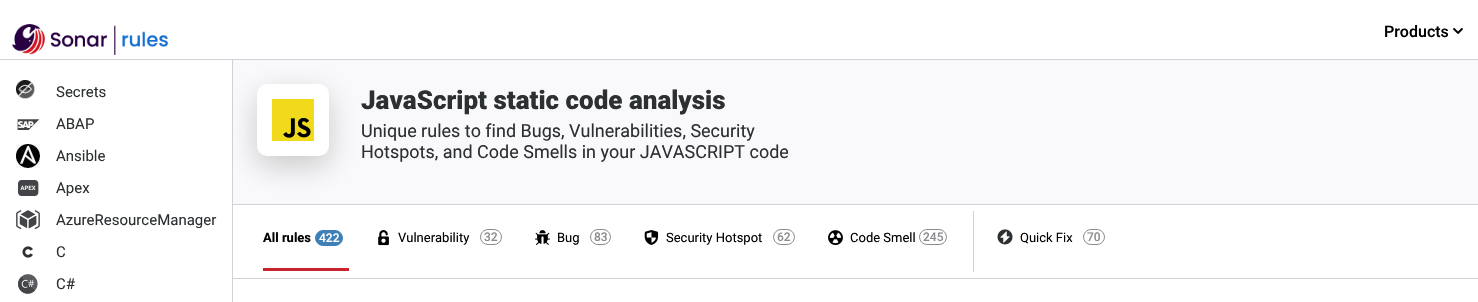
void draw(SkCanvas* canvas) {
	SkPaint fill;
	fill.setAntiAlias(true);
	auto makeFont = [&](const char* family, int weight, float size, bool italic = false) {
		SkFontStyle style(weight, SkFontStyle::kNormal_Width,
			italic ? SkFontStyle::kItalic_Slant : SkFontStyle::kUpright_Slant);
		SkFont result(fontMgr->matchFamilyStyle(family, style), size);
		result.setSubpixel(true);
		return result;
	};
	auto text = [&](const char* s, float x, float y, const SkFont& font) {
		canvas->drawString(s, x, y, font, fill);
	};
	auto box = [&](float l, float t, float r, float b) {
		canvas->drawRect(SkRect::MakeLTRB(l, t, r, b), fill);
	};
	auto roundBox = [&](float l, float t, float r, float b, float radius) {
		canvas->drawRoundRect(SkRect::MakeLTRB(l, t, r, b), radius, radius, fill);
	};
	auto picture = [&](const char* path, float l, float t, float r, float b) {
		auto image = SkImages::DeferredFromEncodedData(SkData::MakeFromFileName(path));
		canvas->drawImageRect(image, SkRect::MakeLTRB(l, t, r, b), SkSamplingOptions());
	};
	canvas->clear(0xFFFFFFFF);
	fill.setColor(0xFFCFD3D7);
	box(232, 60, 233, 302);
	box(0, 59, 1478, 60);
	picture("image0.png", 12, 24, 168, 55);
	picture("image1.png", 1453, 28, 1463, 34);
	picture("image2.png", 16, 80, 35, 99);
	picture("image3.png", 17, 119, 40, 130);
	picture("image4.png", 16, 144, 40, 168);
	picture("image5.png", 18, 180, 39, 196);
	picture("image6.png", 16, 210, 40, 229);
	picture("image7.png", 22, 246, 33, 258);
	picture("image8.png", 18, 274, 38, 294);
	fill.setColor(0xFFF9F9FB);
	box(233, 60, 1478, 204);
	fill.setColor(0xFFCFD3D7);
	box(233, 204, 1478, 205);
	fill.setColor(0x33070706);
	fill.setMaskFilter(SkMaskFilter::MakeBlur(kNormal_SkBlurStyle, 15));
	canvas->drawRoundRect(SkRect::MakeLTRB(257, 94, 329, 166), 10, 10, fill);
	fill.setMaskFilter(nullptr);
	fill.setColor(0xFFFFFFFF);
	roundBox(257, 84, 329, 156, 10);
	picture("image9.png", 272, 99, 314, 141);
	fill.setColor(0xFFCFD3D7);
	box(233, 278, 1478, 279);
	fill.setColor(0xFF3E7FB7);
	canvas->drawRoundRect(SkRect::MakeLTRB(315.5f, 230.5f, 342.5f, 245.5f), 7.5f, 7.5f, fill);
	fill.setStyle(SkPaint::kStroke_Style);
	fill.setStrokeWidth(1);
	canvas->drawRoundRect(SkRect::MakeLTRB(315.5f, 230.5f, 342.5f, 245.5f), 7.5f, 7.5f, fill);
	fill.setStyle(SkPaint::kFill_Style);
	fill.setColor(0xFFC9232C);
	box(263, 268, 349, 271);
	picture("image10.png", 378, 230, 389, 246);
	fill.setStyle(SkPaint::kStroke_Style);
	fill.setColor(0xFF8A8C8F);
	canvas->drawRoundRect(SkRect::MakeLTRB(480.5f, 229.5f, 501.5f, 244.5f), 7.5f, 7.5f, fill);
	picture("image11.png", 535, 230, 550, 245);
	canvas->drawRoundRect(SkRect::MakeLTRB(590.5f, 229.5f, 610.5f, 244.5f), 7.5f, 7.5f, fill);
	picture("image12.png", 644, 230, 659, 245);
	canvas->drawRoundRect(SkRect::MakeLTRB(773.5f, 229.5f, 794.5f, 244.5f), 7.5f, 7.5f, fill);
	picture("image13.png", 828, 230, 843, 245);
	canvas->drawRoundRect(SkRect::MakeLTRB(919.5f, 229.5f, 946.5f, 244.5f), 7.5f, 7.5f, fill);
	fill.setStyle(SkPaint::kFill_Style);
	fill.setColor(0xFFCFD3D7);
	box(973, 211, 974, 272);
	picture("image14.png", 997, 229, 1013, 245);
	fill.setStyle(SkPaint::kStroke_Style);
	fill.setColor(0xFF8A8C8F);
	canvas->drawRoundRect(SkRect::MakeLTRB(1083.5f, 229.5f, 1104.5f, 244.5f), 7.5f, 7.5f, fill);
	auto font1 = makeFont("Roboto", 500, 16);
	fill.setStyle(SkPaint::kFill_Style);
	fill.setColor(0xFF000000);
	text("Products", 1384, 37, font1);
	auto font2 = makeFont("Roboto", 400, 15);
	fill.setColor(0xFF2D3032);
	text("Secrets", 56, 97, font2);
	text("ABAP", 56, 129, font2);
	text("Ansible", 56, 161, font2);
	text("Apex", 56, 193, font2);
	text("AzureResourceManager", 56, 225, font2);
	text("C", 56, 257, font2);
	text("C#", 56, 289, font2);
	auto font3 = makeFont("Roboto", 900, 26);
	text("JavaScript static code analysis", 361, 109, font3);
	auto font4 = makeFont("Roboto", 400, 18);
	text("Unique rules to find Bugs, Vulnerabilities, Security", 361, 137, font4);
	text("Hotspots, and Code Smells in your JAVASCRIPT code", 361, 158, font4);
	auto font5 = makeFont("Roboto", 700, 13);
	fill.setColor(0xFF000000);
	text("All rules", 263, 242, font5);
	auto font6 = makeFont("Roboto", 500, 12);
	fill.setColor(0xFFFFFFFF);
	text("422", 319, 242, font6);
	auto font7 = makeFont("Roboto", 400, 13);
	fill.setColor(0xFF000000);
	text("Vulnerability", 398, 242, font7);
	fill.setColor(0xFF8A8C8F);
	text("32", 484, 241, font6);
	fill.setColor(0xFF000000);
	text("Bug", 557, 242, font7);
	fill.setColor(0xFF8A8C8F);
	text("83", 594, 241, font6);
	fill.setColor(0xFF000000);
	text("Security Hotspot", 666, 242, font7);
	fill.setColor(0xFF8A8C8F);
	text("62", 777, 241, font6);
	fill.setColor(0xFF000000);
	text("Code Smell", 850, 242, font7);
	fill.setColor(0xFF8A8C8F);
	text("245", 923, 241, font6);
	fill.setColor(0xFF000000);
	text("Quick Fix", 1020, 242, font7);
	fill.setColor(0xFF8A8C8F);
	text("70", 1087, 241, font6);
}
